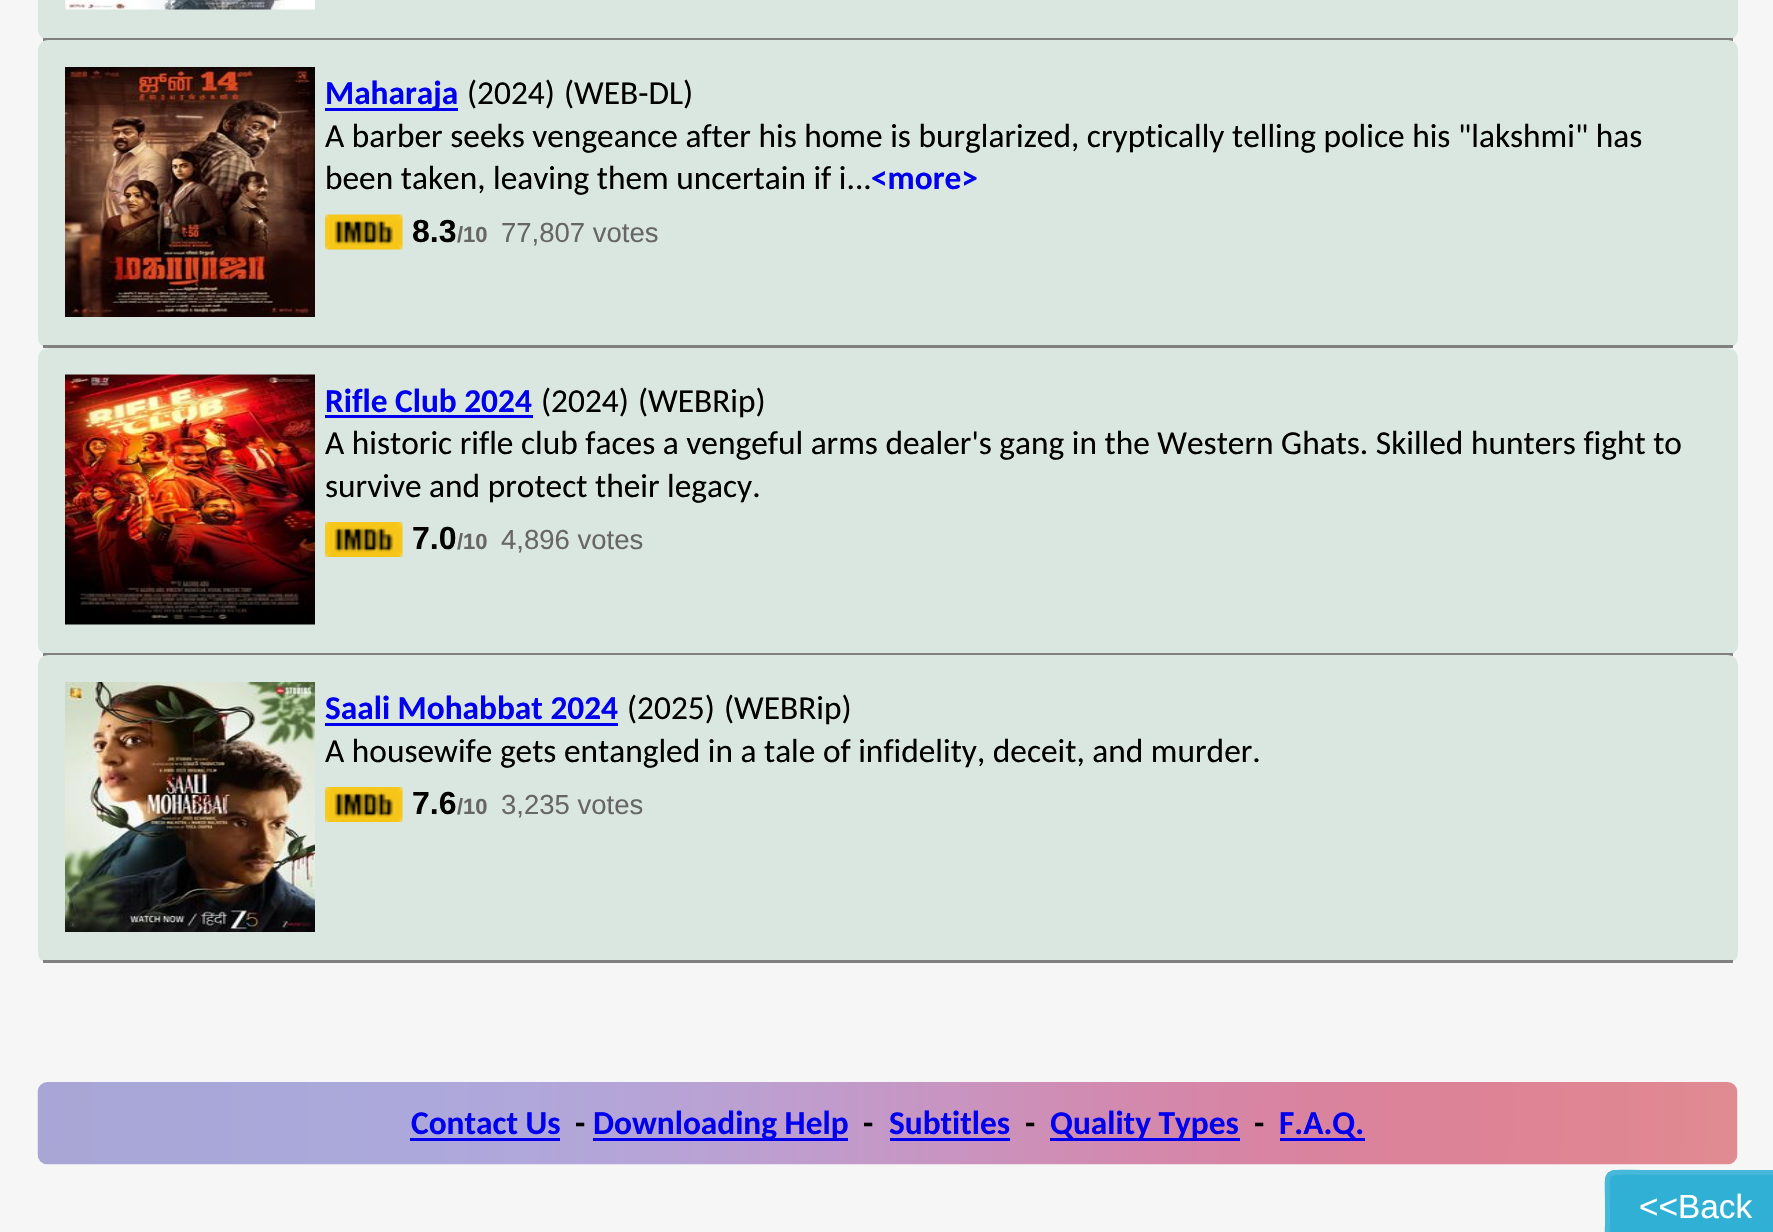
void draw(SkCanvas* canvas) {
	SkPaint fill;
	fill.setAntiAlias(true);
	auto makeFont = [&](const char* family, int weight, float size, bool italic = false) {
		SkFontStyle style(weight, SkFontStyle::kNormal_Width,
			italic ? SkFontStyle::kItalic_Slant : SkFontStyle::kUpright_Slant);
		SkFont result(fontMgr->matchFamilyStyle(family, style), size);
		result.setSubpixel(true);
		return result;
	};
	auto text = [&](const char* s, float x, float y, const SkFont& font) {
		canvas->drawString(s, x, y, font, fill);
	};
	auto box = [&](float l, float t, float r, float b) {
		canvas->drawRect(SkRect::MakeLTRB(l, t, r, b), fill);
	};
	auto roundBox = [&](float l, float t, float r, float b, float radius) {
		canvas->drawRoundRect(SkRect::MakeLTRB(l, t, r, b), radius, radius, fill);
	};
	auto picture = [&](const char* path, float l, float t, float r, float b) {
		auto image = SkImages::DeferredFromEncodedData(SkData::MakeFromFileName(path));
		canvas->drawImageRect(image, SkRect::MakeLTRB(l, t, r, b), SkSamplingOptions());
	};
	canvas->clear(0xFFF6F6F6);
	fill.setColor(0xFFDAE7E1);
	roundBox(38, -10, 1738, 40, 10);
	fill.setColor(0xFF808080);
	box(43, 38, 1733, 41);
	picture("image0.png", 65, 0, 315, 10);
	fill.setColor(0xFFDAE7E1);
	roundBox(38, 40, 1738, 348, 10);
	fill.setColor(0xFF808080);
	box(43, 345, 1733, 348);
	picture("image1.png", 65, 67, 315, 317);
	fill.setColor(0xFF0000EE);
	box(325, 108, 458, 111);
	picture("image2.png", 325, 214, 403, 250);
	fill.setColor(0xFFDAE7E1);
	roundBox(38, 348, 1738, 655, 10);
	fill.setColor(0xFF808080);
	box(43, 653, 1733, 656);
	picture("image3.png", 65, 374, 315, 625);
	fill.setColor(0xFF0000EE);
	box(325, 415, 533, 418);
	picture("image4.png", 325, 522, 403, 557);
	fill.setColor(0xFFDAE7E1);
	roundBox(38, 655, 1738, 963, 10);
	fill.setColor(0xFF808080);
	box(43, 960, 1733, 963);
	picture("image5.png", 65, 682, 315, 932);
	fill.setColor(0xFF0000EE);
	box(325, 723, 618, 726);
	picture("image4.png", 325, 787, 403, 822);
	picture("image6.png", 37, 1082, 1738, 1165);
	box(410, 1138, 560, 1141);
	box(593, 1138, 848, 1141);
	box(890, 1138, 1010, 1141);
	box(1050, 1138, 1240, 1141);
	box(1280, 1138, 1365, 1141);
	fill.setColor(0xFF31B0D5);
	roundBox(1605, 1170, 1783, 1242, 10);
	fill.setStyle(SkPaint::kStroke_Style);
	fill.setStrokeWidth(5);
	fill.setColor(0xFF46B8DA);
	canvas->drawPath(SkPathBuilder().moveTo(1609.5f, 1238).cubicTo(1606, 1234.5f, 1607.5f, 1228, 1607.5f, 1224).lineTo(1607.5f, 1206).cubicTo(1607.5f, 1167, 1601.5f, 1172.5f, 1642, 1172.5f).lineTo(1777.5f, 1172.5f).cubicTo(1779.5f, 1172.5f, 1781.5f, 1173.5f, 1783, 1174.5f).detach(), fill);
	auto font1 = makeFont("Carlito", 700, 33.35f);
	fill.setStyle(SkPaint::kFill_Style);
	fill.setColor(0xFF0000EE);
	text("Maharaja", 325, 104, font1);
	auto font2 = makeFont("Carlito", 400, 33.35f);
	fill.setColor(0xFF000000);
	text("(2024)", 467, 104, font2);
	text("(WEB-DL)", 564, 104, font2);
	text("A barber seeks vengeance after his home is burglarized, cryptically telling police his \"lakshmi\" has", 325, 147, font2);
	text("been taken, leaving them uncertain if i...", 325, 189, font2);
	fill.setColor(0xFF0000EE);
	text("<more>", 871, 189, font1);
	auto font3 = makeFont("Liberation Sans", 700, 32);
	fill.setColor(0xFF000000);
	text("8.3", 412, 242, font3);
	auto font4 = makeFont("Liberation Sans", 700, 22);
	fill.setColor(0xFF666666);
	text("/10", 457, 242, font4);
	auto font5 = makeFont("Liberation Sans", 400, 27.5f);
	text("77,807 votes", 501, 242, font5);
	fill.setColor(0xFF0000EE);
	text("Rifle Club 2024", 325, 412, font1);
	fill.setColor(0xFF000000);
	text("(2024)", 541, 412, font2);
	text("(WEBRip)", 638, 412, font2);
	text("A historic rifle club faces a vengeful arms dealer's gang in the Western Ghats. Skilled hunters fight to", 325, 454, font2);
	text("survive and protect their legacy.", 325, 497, font2);
	text("7.0", 412, 549, font3);
	fill.setColor(0xFF666666);
	text("/10", 457, 549, font4);
	text("4,896 votes", 501, 549, font5);
	fill.setColor(0xFF0000EE);
	text("Saali Mohabbat 2024", 325, 719, font1);
	fill.setColor(0xFF000000);
	text("(2025)", 627, 719, font2);
	text("(WEBRip)", 724, 719, font2);
	text("A housewife gets entangled in a tale of infidelity, deceit, and murder.", 325, 762, font2);
	text("7.6", 412, 814, font3);
	fill.setColor(0xFF666666);
	text("/10", 457, 814, font4);
	text("3,235 votes", 501, 814, font5);
	fill.setColor(0xFF0000EE);
	text("Contact Us", 411, 1134, font1);
	fill.setColor(0xFF000000);
	text("-", 575, 1134, font1);
	fill.setColor(0xFF0000EE);
	text("Downloading Help", 593, 1134, font1);
	fill.setColor(0xFF000000);
	text("-", 863, 1134, font1);
	fill.setColor(0xFF0000EE);
	text("Subtitles", 889, 1134, font1);
	fill.setColor(0xFF000000);
	text("-", 1025, 1134, font1);
	fill.setColor(0xFF0000EE);
	text("Quality Types", 1050, 1134, font1);
	fill.setColor(0xFF000000);
	text("-", 1254, 1134, font1);
	fill.setColor(0xFF0000EE);
	text("F.A.Q.", 1279, 1134, font1);
	auto font6 = makeFont("Liberation Sans", 400, 33.35f);
	fill.setColor(0xFFFFFFFF);
	text("<<Back", 1639, 1218, font6);
}
